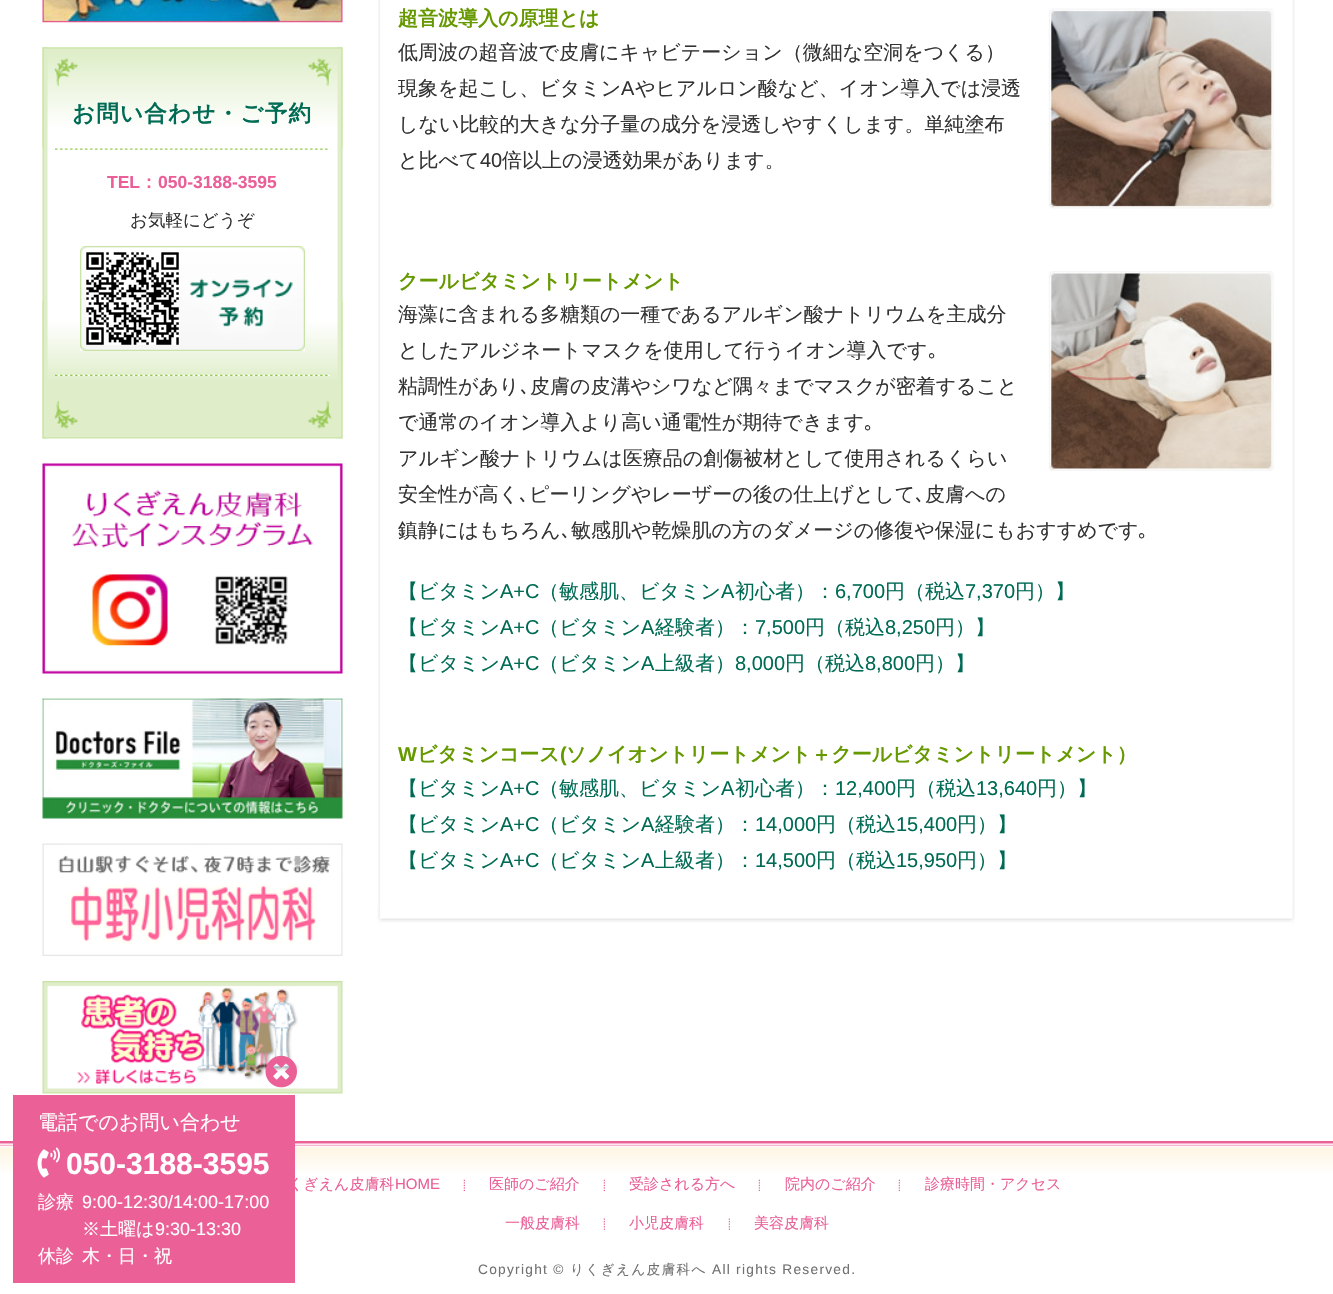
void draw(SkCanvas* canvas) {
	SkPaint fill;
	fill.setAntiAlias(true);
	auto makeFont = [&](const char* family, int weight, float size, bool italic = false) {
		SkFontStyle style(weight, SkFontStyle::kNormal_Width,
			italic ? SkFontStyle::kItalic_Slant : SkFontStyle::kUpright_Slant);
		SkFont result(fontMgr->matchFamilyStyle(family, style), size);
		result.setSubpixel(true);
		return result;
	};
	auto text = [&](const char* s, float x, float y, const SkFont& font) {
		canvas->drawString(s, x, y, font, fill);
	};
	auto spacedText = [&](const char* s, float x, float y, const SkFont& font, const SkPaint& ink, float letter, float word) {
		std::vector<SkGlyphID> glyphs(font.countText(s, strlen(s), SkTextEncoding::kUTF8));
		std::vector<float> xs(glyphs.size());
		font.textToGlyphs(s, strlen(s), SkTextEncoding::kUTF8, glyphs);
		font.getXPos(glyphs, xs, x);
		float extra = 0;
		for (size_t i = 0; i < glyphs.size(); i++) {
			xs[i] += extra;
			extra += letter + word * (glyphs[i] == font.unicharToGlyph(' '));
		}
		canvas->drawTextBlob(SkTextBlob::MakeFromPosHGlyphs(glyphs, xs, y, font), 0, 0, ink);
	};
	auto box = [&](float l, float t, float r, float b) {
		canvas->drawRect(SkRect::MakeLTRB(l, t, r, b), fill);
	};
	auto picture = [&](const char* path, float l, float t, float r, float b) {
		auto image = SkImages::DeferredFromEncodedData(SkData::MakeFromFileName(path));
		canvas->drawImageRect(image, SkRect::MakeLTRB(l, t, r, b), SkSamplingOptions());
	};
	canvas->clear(0xFFFFFFFF);
	picture("image0.png", 42, 0, 343, 23);
	picture("image1.png", 42, 47, 343, 439);
	picture("image2.png", 42, 47, 343, 148);
	picture("image3.png", 42, 301, 343, 439);
	picture("image4.png", 55, 148, 328, 150);
	picture("image5.png", 55, 374, 330, 376);
	picture("image6.png", 80, 246, 305, 351);
	picture("image7.png", 42, 463, 343, 674);
	picture("image8.png", 42, 698, 343, 819);
	picture("image9.png", 42, 843, 343, 956);
	picture("image10.png", 42, 981, 343, 1094);
	picture("image11.png", 378, 0, 1295, 924);
	picture("image12.png", 377, 906, 1295, 923);
	picture("image13.png", 1048, 8, 1274, 209);
	picture("image14.png", 1048, 271, 1274, 471);
	picture("image15.png", 265, 1055, 297, 1088);
	picture("image17.png", 0, 1141, 1333, 1172);
	picture("image18.png", 463, 1179, 465, 1191);
	picture("image18.png", 603, 1179, 605, 1191);
	picture("image18.png", 758, 1179, 760, 1191);
	picture("image18.png", 898, 1179, 900, 1191);
	picture("image19.png", 603, 1218, 605, 1230);
	picture("image19.png", 728, 1218, 730, 1230);
	auto font1 = makeFont("WenQuanYi Zen Hei", 700, 22.5f);
	fill.setColor(0xFF006B54);
	spacedText("お問い合わせ・ご予約", 72, 121, font1, fill, 1.25f, 0);
	auto font2 = makeFont("Liberation Sans", 700, 17.5f);
	fill.setColor(0xFFEA5F97);
	text("TEL", 107, 188, font2);
	auto font3 = makeFont("WenQuanYi Zen Hei", 700, 17.5f);
	text("：", 140, 188, font3);
	text("050-3188-3595", 158, 188, font2);
	auto font4 = makeFont("WenQuanYi Zen Hei", 500, 17.5f);
	fill.setColor(0xFF333333);
	text("お気軽にどうぞ", 130, 226, font4);
	auto font5 = makeFont("WenQuanYi Zen Hei", 700, 20);
	fill.setColor(0xFF669900);
	text("超音波導入の原理とは", 398, 25, font5);
	auto font6 = makeFont("WenQuanYi Zen Hei", 500, 20);
	fill.setColor(0xFF333333);
	text("低周波の超音波で皮膚にキャビテーション（微細な空洞をつくる）", 398, 59, font6);
	text("現象を起こし、ビタミン", 398, 95, font6);
	auto font7 = makeFont("Liberation Sans", 400, 20);
	text("A", 621, 95, font7);
	text("やヒアルロン酸など、イオン導入では浸透", 635, 95, font6);
	text("しない比較的大きな分子量の成分を浸透しやすくします。単純塗布", 398, 131, font6);
	text("と比べて", 398, 167, font6);
	text("40", 480, 167, font7);
	text("倍以上の浸透効果があります。", 502, 167, font6);
	fill.setColor(0xFF669900);
	text("クールビタミントリートメント", 398, 288, font5);
	fill.setColor(0xFF333333);
	text("海藻に含まれる多糖類の一種であるアルギン酸ナトリウムを主成分", 398, 321, font6);
	text("としたアルジネートマスクを使用して行うイオン導入です", 398, 357, font6);
	auto font8 = makeFont("IPAPGothic", 400, 20);
	text("｡", 928, 357, font8);
	text("粘調性があり", 398, 393, font6);
	text("､", 520, 393, font8);
	text("皮膚の皮溝やシワなど隅々までマスクが密着すること", 530, 393, font6);
	text("で通常のイオン導入より高い通電性が期待できます", 398, 429, font6);
	text("｡", 864, 429, font8);
	text("アルギン酸ナトリウムは医療品の創傷被材として使用されるくらい", 398, 465, font6);
	text("安全性が高く", 398, 501, font6);
	text("､", 519, 501, font8);
	text("ピーリングやレーザーの後の仕上げとして", 529, 501, font6);
	text("､", 915, 501, font8);
	text("皮膚への", 925, 501, font6);
	text("鎮静にはもちろん", 398, 537, font6);
	text("､", 561, 537, font8);
	text("敏感肌や乾燥肌の方のダメージの修復や保湿にもおすすめです", 571, 537, font6);
	text("｡", 1138, 537, font8);
	fill.setColor(0xFF006B54);
	text("【ビタミン", 398, 598, font6);
	text("A+C", 500, 598, font7);
	text("（敏感肌、ビタミン", 539, 598, font6);
	text("A", 721, 598, font7);
	text("初心者）：", 735, 598, font6);
	text("6,700", 835, 598, font7);
	text("円（税込", 885, 598, font6);
	text("7,370", 965, 598, font7);
	text("円）】", 1015, 598, font6);
	text("【ビタミン", 398, 634, font6);
	text("A+C", 500, 634, font7);
	text("（ビタミン", 539, 634, font6);
	text("A", 641, 634, font7);
	text("経験者）：", 655, 634, font6);
	text("7,500", 755, 634, font7);
	text("円（税込", 805, 634, font6);
	text("8,250", 885, 634, font7);
	text("円）】", 935, 634, font6);
	text("【ビタミン", 398, 670, font6);
	text("A+C", 500, 670, font7);
	text("（ビタミン", 539, 670, font6);
	text("A", 641, 670, font7);
	text("上級者）", 655, 670, font6);
	text("8,000", 735, 670, font7);
	text("円（税込", 785, 670, font6);
	text("8,800", 865, 670, font7);
	text("円）】", 915, 670, font6);
	auto font9 = makeFont("Liberation Sans", 700, 20);
	fill.setColor(0xFF669900);
	text("W", 398, 761, font9);
	text("ビタミンコース", 417, 761, font5);
	text("(", 560, 761, font9);
	text("ソノイオントリートメント＋クールビタミントリートメント）", 566, 761, font5);
	fill.setColor(0xFF006B54);
	text("【ビタミン", 398, 795, font6);
	text("A+C", 500, 795, font7);
	text("（敏感肌、ビタミン", 539, 795, font6);
	text("A", 721, 795, font7);
	text("初心者）：", 735, 795, font6);
	text("12,400", 835, 795, font7);
	text("円（税込", 896, 795, font6);
	text("13,640", 976, 795, font7);
	text("円）】", 1037, 795, font6);
	text("【ビタミン", 398, 831, font6);
	text("A+C", 500, 831, font7);
	text("（ビタミン", 539, 831, font6);
	text("A", 641, 831, font7);
	text("経験者）：", 655, 831, font6);
	text("14,000", 755, 831, font7);
	text("円（税込", 816, 831, font6);
	text("15,400", 896, 831, font7);
	text("円）】", 957, 831, font6);
	text("【ビタミン", 398, 867, font6);
	text("A+C", 500, 867, font7);
	text("（ビタミン", 539, 867, font6);
	text("A", 641, 867, font7);
	text("上級者）：", 655, 867, font6);
	text("14,500", 755, 867, font7);
	text("円（税込", 816, 867, font6);
	text("15,950", 896, 867, font7);
	text("円）】", 957, 867, font6);
	auto font10 = makeFont("WenQuanYi Zen Hei", 500, 15);
	fill.setColor(0xFFEA5F97);
	text("くぎえん皮膚科", 288, 1189, font10);
	fill.setColor(0xFFEA6097);
	box(13, 1095, 295, 1283);
	auto font11 = makeFont("Liberation Sans", 700, 30);
	fill.setColor(0xFFFFFFFF);
	text("050-3188-3595", 66, 1174, font11);
	picture("image16.png", 37, 1147, 60, 1178);
	text("電話でのお問い合わせ", 38, 1129, font6);
	auto font12 = makeFont("WenQuanYi Zen Hei", 500, 18);
	text("木・日・祝", 82, 1262, font12);
	text("休診", 38, 1262, font12);
	auto font13 = makeFont("Liberation Sans", 400, 18);
	text("9:30-13:30", 155, 1235, font13);
	text("※土曜は", 82, 1235, font12);
	text("9:00-12:30/14:00-17:00", 82, 1208, font13);
	text("診療", 38, 1208, font12);
	auto font14 = makeFont("Liberation Sans", 400, 15);
	fill.setColor(0xFFEA5F97);
	text("HOME", 395, 1189, font14);
	text("医師のご紹介", 489, 1189, font10);
	text("受診される方へ", 629, 1189, font10);
	text("院内のご紹介", 785, 1189, font10);
	text("診療時間・アクセス", 925, 1189, font10);
	text("一般皮膚科", 505, 1228, font10);
	text("小児皮膚科", 629, 1228, font10);
	text("美容皮膚科", 754, 1228, font10);
	auto font15 = makeFont("Liberation Sans", 400, 13.75f);
	fill.setColor(0xFF727171);
	spacedText("Copyright ©", 478, 1274, font15, fill, 1.25f, 0);
	auto font16 = makeFont("WenQuanYi Zen Hei", 500, 13.75f);
	spacedText("りくぎえん皮膚科へ", 570, 1274, font16, fill, 1.25f, 0);
	spacedText("All rights Reserved.", 712, 1274, font15, fill, 1.25f, 0);
}
